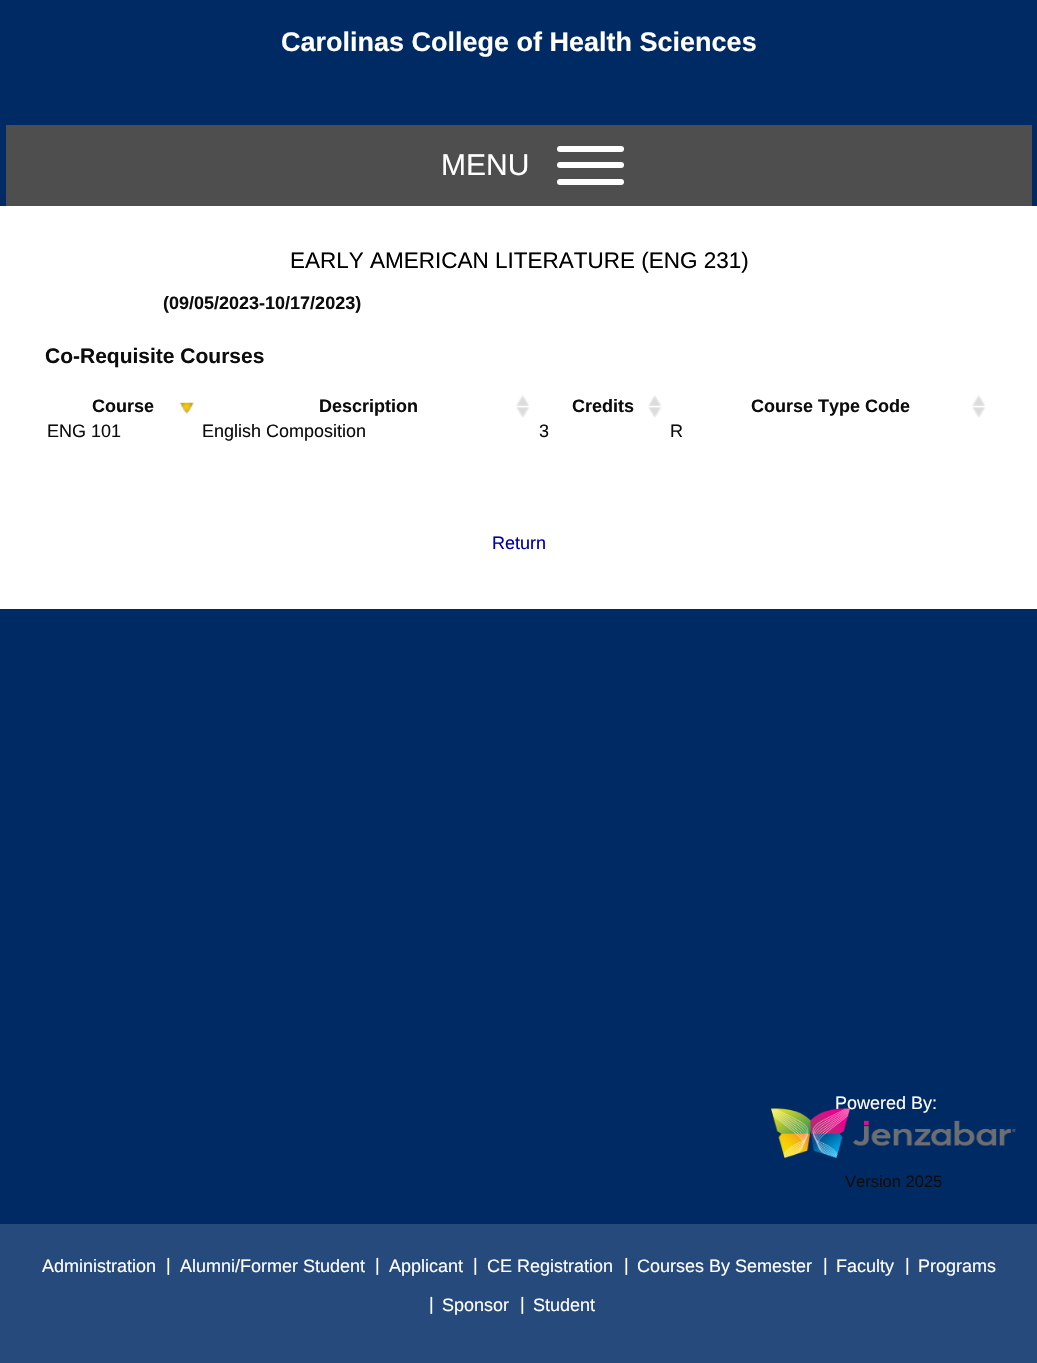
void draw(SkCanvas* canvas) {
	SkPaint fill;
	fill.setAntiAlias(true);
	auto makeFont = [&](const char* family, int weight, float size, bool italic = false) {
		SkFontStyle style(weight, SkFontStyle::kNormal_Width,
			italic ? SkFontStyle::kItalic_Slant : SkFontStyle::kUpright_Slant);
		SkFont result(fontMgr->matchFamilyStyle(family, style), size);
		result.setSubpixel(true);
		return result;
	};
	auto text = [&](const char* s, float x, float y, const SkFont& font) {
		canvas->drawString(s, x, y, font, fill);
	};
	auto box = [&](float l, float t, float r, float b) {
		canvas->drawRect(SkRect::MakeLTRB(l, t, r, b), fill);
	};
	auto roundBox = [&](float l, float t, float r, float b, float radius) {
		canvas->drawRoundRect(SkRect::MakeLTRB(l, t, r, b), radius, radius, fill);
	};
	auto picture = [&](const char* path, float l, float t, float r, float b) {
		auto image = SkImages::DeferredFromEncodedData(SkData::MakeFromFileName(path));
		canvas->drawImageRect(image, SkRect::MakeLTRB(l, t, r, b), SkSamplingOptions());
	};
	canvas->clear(0xFF002A64);
	fill.setColor(0xFF4E4E4E);
	box(6, 125, 1032, 206);
	fill.setColor(0xFFFFFFFF);
	roundBox(557, 146, 624, 152, 3);
	roundBox(557, 162, 624, 168, 3);
	roundBox(557, 179, 624, 185, 3);
	box(0, 206, 1037, 609);
	picture("image0.png", 179, 402, 194, 414);
	picture("image1.png", 516, 395, 530, 418);
	picture("image2.png", 648, 395, 662, 418);
	picture("image1.png", 972, 395, 986, 418);
	fill.setColor(0xFF264A7B);
	box(0, 1224, 1037, 1363);
	auto font1 = makeFont("Liberation Sans", 700, 27);
	fill.setColor(0xFFFFFFFF);
	text("Carolinas College of Health Sciences", 281, 51, font1);
	auto font2 = makeFont("Liberation Sans", 400, 30);
	text("MENU", 441, 175, font2);
	auto font3 = makeFont("Liberation Sans", 400, 22.5f);
	fill.setColor(0xFF000000);
	text("EARLY AMERICAN LITERATURE (ENG 231)", 290, 268, font3);
	auto font4 = makeFont("Liberation Sans", 700, 18);
	fill.setColor(0xFF0D0D0D);
	text("(09/05/2023-10/17/2023)", 163, 309, font4);
	auto font5 = makeFont("Liberation Sans", 700, 21);
	text("Co-Requisite Courses", 45, 363, font5);
	text("Course", 92, 412, font4);
	text("Description", 319, 412, font4);
	text("Credits", 572, 412, font4);
	text("Course Type Code", 751, 412, font4);
	auto font6 = makeFont("Liberation Sans", 400, 18);
	text("ENG 101", 47, 437, font6);
	text("English Composition", 202, 437, font6);
	text("3", 539, 437, font6);
	text("R", 670, 437, font6);
	fill.setColor(0xFF0000AA);
	text("Return", 492, 549, font6);
	fill.setColor(0xFFFFFFFF);
	text("Powered By:", 835, 1109, font6);
	picture("image3.png", 771, 1108, 1016, 1158);
	auto font7 = makeFont("Liberation Sans", 400, 16.5f);
	fill.setColor(0xFF0D0D0D);
	text("Version 2025", 845, 1187, font7);
	fill.setColor(0xFFFFFFFF);
	text("Administration", 42, 1272, font6);
	text("|", 166, 1271, font6);
	text("Alumni/Former Student", 180, 1272, font6);
	text("|", 375, 1271, font6);
	text("Applicant", 389, 1272, font6);
	text("|", 473, 1271, font6);
	text("CE Registration", 487, 1272, font6);
	text("|", 624, 1271, font6);
	text("Courses By Semester", 637, 1272, font6);
	text("|", 823, 1271, font6);
	text("Faculty", 836, 1272, font6);
	text("|", 905, 1271, font6);
	text("Programs", 918, 1272, font6);
	text("|", 429, 1310, font6);
	text("Sponsor", 442, 1311, font6);
	text("|", 520, 1310, font6);
	text("Student", 533, 1311, font6);
}
